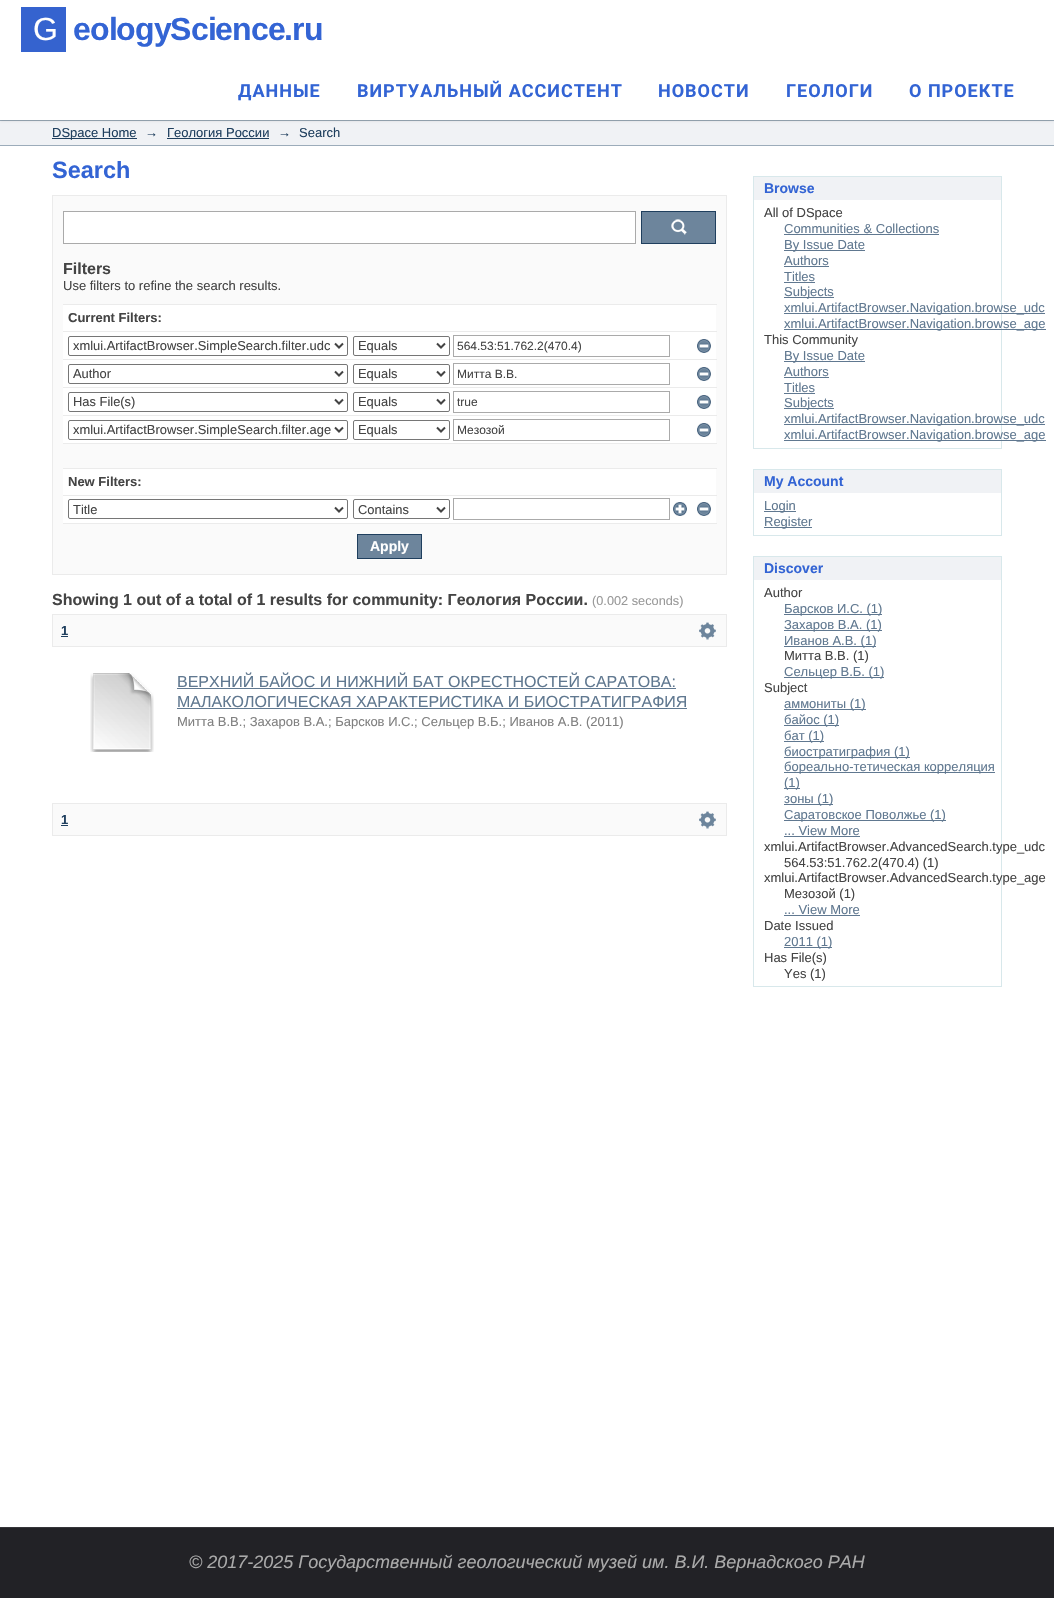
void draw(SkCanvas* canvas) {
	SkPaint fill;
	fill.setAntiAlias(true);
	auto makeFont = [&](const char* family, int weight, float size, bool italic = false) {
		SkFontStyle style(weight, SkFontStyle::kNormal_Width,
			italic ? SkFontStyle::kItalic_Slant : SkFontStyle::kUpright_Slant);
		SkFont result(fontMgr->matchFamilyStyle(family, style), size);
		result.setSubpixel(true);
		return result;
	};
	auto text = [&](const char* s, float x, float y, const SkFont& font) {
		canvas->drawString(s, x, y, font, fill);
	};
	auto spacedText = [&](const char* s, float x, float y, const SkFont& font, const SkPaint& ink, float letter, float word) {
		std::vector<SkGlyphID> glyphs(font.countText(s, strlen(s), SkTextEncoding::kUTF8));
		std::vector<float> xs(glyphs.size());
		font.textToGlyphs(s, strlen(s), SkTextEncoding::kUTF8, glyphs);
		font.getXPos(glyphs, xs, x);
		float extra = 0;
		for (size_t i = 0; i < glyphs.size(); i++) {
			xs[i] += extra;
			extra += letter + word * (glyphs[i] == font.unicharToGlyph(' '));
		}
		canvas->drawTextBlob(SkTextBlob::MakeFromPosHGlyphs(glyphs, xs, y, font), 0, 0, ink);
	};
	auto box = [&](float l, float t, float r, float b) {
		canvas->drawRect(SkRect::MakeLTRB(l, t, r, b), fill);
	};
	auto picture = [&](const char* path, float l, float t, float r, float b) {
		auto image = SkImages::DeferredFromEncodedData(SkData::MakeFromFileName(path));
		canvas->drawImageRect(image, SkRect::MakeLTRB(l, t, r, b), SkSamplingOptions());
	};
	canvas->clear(0xFFFFFFFF);
	fill.setColor(0xFFF0F2F5);
	box(0, 121, 1054, 145);
	fill.setColor(0xFF9CACBA);
	box(0, 120, 1054, 121);
	fill.setColor(0x33000000);
	fill.setMaskFilter(SkMaskFilter::MakeBlur(kNormal_SkBlurStyle, 1.5f));
	canvas->drawRect(SkRect::MakeLTRB(0, 0, 1054, 120), fill);
	fill.setMaskFilter(nullptr);
	fill.setColor(0xFFFFFFFF);
	box(0, 0, 1054, 120);
	fill.setColor(0xFF3563CF);
	box(21, 7, 66, 52);
	fill.setColor(0xFF9CACBA);
	box(0, 145, 1054, 146);
	fill.setColor(0xFF1F3F5E);
	box(52, 138, 137, 139);
	box(167, 138, 269, 139);
	fill.setColor(0xFFFAFAFA);
	canvas->drawRect(SkRect::MakeLTRB(52.5f, 195.5f, 726.5f, 574.5f), fill);
	fill.setStyle(SkPaint::kStroke_Style);
	fill.setStrokeWidth(1);
	fill.setColor(0xFFEBEBEB);
	canvas->drawRect(SkRect::MakeLTRB(52.5f, 195.5f, 726.5f, 574.5f), fill);
	fill.setStyle(SkPaint::kFill_Style);
	fill.setColor(0xFFFFFFFF);
	canvas->drawRect(SkRect::MakeLTRB(63.5f, 211.5f, 635.5f, 243.5f), fill);
	fill.setStyle(SkPaint::kStroke_Style);
	fill.setColor(0xFFAAAAAA);
	canvas->drawRect(SkRect::MakeLTRB(63.5f, 211.5f, 635.5f, 243.5f), fill);
	fill.setStyle(SkPaint::kFill_Style);
	fill.setColor(0xFF6D859C);
	box(642, 212, 715, 243);
	picture("image0.png", 671, 219, 687, 235);
	fill.setStyle(SkPaint::kStroke_Style);
	fill.setColor(0xFF1F3F5E);
	canvas->drawRect(SkRect::MakeLTRB(641.5f, 211.5f, 715.5f, 243.5f), fill);
	fill.setStyle(SkPaint::kFill_Style);
	fill.setColor(0xFFFFFFFF);
	box(63, 305, 716, 523);
	fill.setColor(0xFFEBEBEB);
	box(63, 304, 717, 305);
	box(63, 331, 717, 332);
	fill.setStyle(SkPaint::kStroke_Style);
	fill.setColor(0xFF767676);
	canvas->drawRoundRect(SkRect::MakeLTRB(68.5f, 336.5f, 347.5f, 355.5f), 1.5f, 1.5f, fill);
	fill.setStrokeWidth(2);
	fill.setColor(0xFF444444);
	canvas->drawPath(SkPathBuilder().moveTo(335, 343.5f).lineTo(339, 347.5f).lineTo(343, 343.5f).detach(), fill);
	fill.setStrokeWidth(1);
	fill.setColor(0xFF767676);
	canvas->drawRoundRect(SkRect::MakeLTRB(353.5f, 336.5f, 449.5f, 355.5f), 1.5f, 1.5f, fill);
	fill.setStrokeWidth(2);
	fill.setColor(0xFF444444);
	canvas->drawPath(SkPathBuilder().moveTo(437, 343.5f).lineTo(441, 347.5f).lineTo(445, 343.5f).detach(), fill);
	fill.setStrokeWidth(1);
	fill.setColor(0xFFAAAAAA);
	canvas->drawRect(SkRect::MakeLTRB(453.5f, 335.5f, 669.5f, 356.5f), fill);
	picture("image1.png", 697, 339, 711, 353);
	fill.setStyle(SkPaint::kFill_Style);
	fill.setColor(0xFFEBEBEB);
	box(63, 359, 717, 360);
	fill.setStyle(SkPaint::kStroke_Style);
	fill.setColor(0xFF767676);
	canvas->drawRoundRect(SkRect::MakeLTRB(68.5f, 364.5f, 347.5f, 383.5f), 1.5f, 1.5f, fill);
	fill.setStrokeWidth(2);
	fill.setColor(0xFF444444);
	canvas->drawPath(SkPathBuilder().moveTo(335, 371.5f).lineTo(339, 375.5f).lineTo(343, 371.5f).detach(), fill);
	fill.setStrokeWidth(1);
	fill.setColor(0xFF767676);
	canvas->drawRoundRect(SkRect::MakeLTRB(353.5f, 364.5f, 449.5f, 383.5f), 1.5f, 1.5f, fill);
	fill.setStrokeWidth(2);
	fill.setColor(0xFF444444);
	canvas->drawPath(SkPathBuilder().moveTo(437, 371.5f).lineTo(441, 375.5f).lineTo(445, 371.5f).detach(), fill);
	fill.setStrokeWidth(1);
	fill.setColor(0xFFAAAAAA);
	canvas->drawRect(SkRect::MakeLTRB(453.5f, 363.5f, 669.5f, 384.5f), fill);
	picture("image1.png", 697, 367, 711, 381);
	fill.setStyle(SkPaint::kFill_Style);
	fill.setColor(0xFFEBEBEB);
	box(63, 387, 717, 388);
	fill.setStyle(SkPaint::kStroke_Style);
	fill.setColor(0xFF767676);
	canvas->drawRoundRect(SkRect::MakeLTRB(68.5f, 392.5f, 347.5f, 411.5f), 1.5f, 1.5f, fill);
	fill.setStrokeWidth(2);
	fill.setColor(0xFF444444);
	canvas->drawPath(SkPathBuilder().moveTo(335, 399.5f).lineTo(339, 403.5f).lineTo(343, 399.5f).detach(), fill);
	fill.setStrokeWidth(1);
	fill.setColor(0xFF767676);
	canvas->drawRoundRect(SkRect::MakeLTRB(353.5f, 392.5f, 449.5f, 411.5f), 1.5f, 1.5f, fill);
	fill.setStrokeWidth(2);
	fill.setColor(0xFF444444);
	canvas->drawPath(SkPathBuilder().moveTo(437, 399.5f).lineTo(441, 403.5f).lineTo(445, 399.5f).detach(), fill);
	fill.setStrokeWidth(1);
	fill.setColor(0xFFAAAAAA);
	canvas->drawRect(SkRect::MakeLTRB(453.5f, 391.5f, 669.5f, 412.5f), fill);
	picture("image1.png", 697, 395, 711, 409);
	fill.setStyle(SkPaint::kFill_Style);
	fill.setColor(0xFFEBEBEB);
	box(63, 415, 717, 416);
	fill.setStyle(SkPaint::kStroke_Style);
	fill.setColor(0xFF767676);
	canvas->drawRoundRect(SkRect::MakeLTRB(68.5f, 420.5f, 347.5f, 439.5f), 1.5f, 1.5f, fill);
	fill.setStrokeWidth(2);
	fill.setColor(0xFF444444);
	canvas->drawPath(SkPathBuilder().moveTo(335, 427.5f).lineTo(339, 431.5f).lineTo(343, 427.5f).detach(), fill);
	fill.setStrokeWidth(1);
	fill.setColor(0xFF767676);
	canvas->drawRoundRect(SkRect::MakeLTRB(353.5f, 420.5f, 449.5f, 439.5f), 1.5f, 1.5f, fill);
	fill.setStrokeWidth(2);
	fill.setColor(0xFF444444);
	canvas->drawPath(SkPathBuilder().moveTo(437, 427.5f).lineTo(441, 431.5f).lineTo(445, 427.5f).detach(), fill);
	fill.setStrokeWidth(1);
	fill.setColor(0xFFAAAAAA);
	canvas->drawRect(SkRect::MakeLTRB(453.5f, 419.5f, 669.5f, 440.5f), fill);
	picture("image1.png", 697, 423, 711, 437);
	fill.setStyle(SkPaint::kFill_Style);
	fill.setColor(0xFFFAFAFA);
	box(63, 444, 716, 468);
	fill.setColor(0xFFEBEBEB);
	box(63, 443, 717, 444);
	box(63, 468, 717, 469);
	box(63, 495, 717, 496);
	fill.setStyle(SkPaint::kStroke_Style);
	fill.setColor(0xFF767676);
	canvas->drawRoundRect(SkRect::MakeLTRB(68.5f, 499.5f, 347.5f, 518.5f), 1.5f, 1.5f, fill);
	fill.setStrokeWidth(2);
	fill.setColor(0xFF444444);
	canvas->drawPath(SkPathBuilder().moveTo(335, 507.5f).lineTo(339, 511.5f).lineTo(343, 507.5f).detach(), fill);
	fill.setStrokeWidth(1);
	fill.setColor(0xFF767676);
	canvas->drawRoundRect(SkRect::MakeLTRB(353.5f, 499.5f, 449.5f, 518.5f), 1.5f, 1.5f, fill);
	fill.setStrokeWidth(2);
	fill.setColor(0xFF444444);
	canvas->drawPath(SkPathBuilder().moveTo(437, 507.5f).lineTo(441, 511.5f).lineTo(445, 507.5f).detach(), fill);
	fill.setStrokeWidth(1);
	fill.setColor(0xFFAAAAAA);
	canvas->drawRect(SkRect::MakeLTRB(453.5f, 498.5f, 669.5f, 519.5f), fill);
	picture("image2.png", 673, 502, 687, 516);
	picture("image1.png", 697, 502, 711, 516);
	fill.setStyle(SkPaint::kFill_Style);
	fill.setColor(0xFFEBEBEB);
	box(63, 523, 717, 524);
	fill.setColor(0xFF6D859C);
	canvas->drawRect(SkRect::MakeLTRB(357.5f, 534.5f, 421.5f, 558.5f), fill);
	fill.setStyle(SkPaint::kStroke_Style);
	fill.setColor(0xFF1F3F5E);
	canvas->drawRect(SkRect::MakeLTRB(357.5f, 534.5f, 421.5f, 558.5f), fill);
	fill.setStyle(SkPaint::kFill_Style);
	fill.setColor(0xFFFAFAFA);
	canvas->drawRect(SkRect::MakeLTRB(52.5f, 614.5f, 726.5f, 646.5f), fill);
	fill.setStyle(SkPaint::kStroke_Style);
	fill.setColor(0xFFEBEBEB);
	canvas->drawRect(SkRect::MakeLTRB(52.5f, 614.5f, 726.5f, 646.5f), fill);
	fill.setStyle(SkPaint::kFill_Style);
	fill.setColor(0xFF1F3F5E);
	box(61, 636, 68, 637);
	picture("image3.png", 699, 622, 716, 640);
	picture("image4.png", 90, 673, 154, 752);
	fill.setColor(0xFF607890);
	box(177, 688, 676, 689);
	box(177, 708, 687, 709);
	fill.setColor(0xFFFAFAFA);
	canvas->drawRect(SkRect::MakeLTRB(52.5f, 803.5f, 726.5f, 835.5f), fill);
	fill.setStyle(SkPaint::kStroke_Style);
	fill.setColor(0xFFEBEBEB);
	canvas->drawRect(SkRect::MakeLTRB(52.5f, 803.5f, 726.5f, 835.5f), fill);
	fill.setStyle(SkPaint::kFill_Style);
	fill.setColor(0xFF1F3F5E);
	box(61, 825, 68, 826);
	picture("image3.png", 699, 811, 716, 829);
	fill.setColor(0xFFF0F2F5);
	box(754, 177, 1001, 200);
	fill.setColor(0xFFD8E8EB);
	box(753, 176, 1002, 177);
	box(1001, 176, 1002, 449);
	box(753, 176, 754, 200);
	box(753, 448, 1002, 449);
	box(753, 200, 754, 449);
	fill.setColor(0xFF607890);
	box(784, 234, 939, 235);
	box(784, 250, 865, 251);
	box(784, 266, 829, 267);
	box(784, 282, 815, 283);
	box(784, 297, 834, 298);
	box(784, 313, 1045, 314);
	box(784, 329, 1046, 330);
	box(784, 361, 865, 362);
	box(784, 377, 829, 378);
	box(784, 393, 815, 394);
	box(784, 408, 834, 409);
	box(784, 424, 1045, 425);
	box(784, 440, 1046, 441);
	fill.setColor(0xFFF0F2F5);
	box(754, 470, 1001, 493);
	fill.setColor(0xFFD8E8EB);
	box(753, 469, 1002, 470);
	box(1001, 469, 1002, 536);
	box(753, 469, 754, 493);
	box(753, 535, 1002, 536);
	box(753, 493, 754, 536);
	fill.setColor(0xFF607890);
	box(764, 511, 796, 512);
	box(764, 527, 812, 528);
	fill.setColor(0xFFF0F2F5);
	box(754, 557, 1001, 580);
	fill.setColor(0xFFD8E8EB);
	box(753, 556, 1002, 557);
	box(1001, 556, 1002, 987);
	box(753, 556, 754, 580);
	box(753, 986, 1002, 987);
	box(753, 580, 754, 987);
	fill.setColor(0xFF607890);
	box(784, 614, 882, 615);
	box(784, 630, 882, 631);
	box(784, 646, 876, 647);
	box(784, 677, 884, 678);
	box(784, 709, 866, 710);
	box(784, 725, 839, 726);
	box(784, 741, 824, 742);
	box(784, 757, 910, 758);
	box(784, 772, 995, 773);
	box(784, 788, 800, 789);
	box(784, 804, 833, 805);
	box(784, 820, 946, 821);
	box(784, 836, 860, 837);
	box(784, 915, 860, 916);
	box(784, 947, 832, 948);
	fill.setColor(0xFF222226);
	box(0, 1528, 1054, 1598);
	fill.setColor(0xFF36363A);
	box(0, 1527, 1054, 1528);
	auto font1 = makeFont("Liberation Sans", 400, 32);
	fill.setColor(0xFFFFFFFF);
	spacedText("G", 33, 40, font1, fill, -6, 0);
	auto font2 = makeFont("Liberation Sans", 700, 32);
	fill.setColor(0xFF3364D4);
	spacedText("e", 73, 40, font2, fill, -6, 0);
	spacedText("o", 90, 40, font2, fill, -6, 0);
	spacedText("l", 109, 40, font2, fill, -6, 0);
	spacedText("o", 116, 40, font2, fill, -6, 0);
	spacedText("g", 135, 40, font2, fill, -6, 0);
	spacedText("y", 154, 40, font2, fill, -6, 0);
	spacedText("S", 170, 40, font2, fill, -6, 0);
	spacedText("c", 191, 40, font2, fill, -6, 0);
	spacedText("i", 208, 40, font2, fill, -6, 0);
	spacedText("e", 215, 40, font2, fill, -6, 0);
	spacedText("n", 232, 40, font2, fill, -6, 0);
	spacedText("c", 251, 40, font2, fill, -6, 0);
	spacedText("e", 268, 40, font2, fill, -6, 0);
	spacedText(".", 284, 40, font2, fill, -6, 0);
	spacedText("r", 292, 40, font2, fill, -6, 0);
	spacedText("u", 304, 40, font2, fill, -6, 0);
	auto font3 = makeFont("Roboto", 700, 18);
	spacedText("ДАННЫЕ", 238, 97, font3, fill, 1, 0);
	spacedText("ВИРТУАЛЬНЫЙ АССИСТЕНТ", 357, 97, font3, fill, 1, 0);
	spacedText("НОВОСТИ", 658, 97, font3, fill, 1, 0);
	spacedText("ГЕОЛОГИ", 786, 97, font3, fill, 1, 0);
	spacedText("О ПРОЕКТЕ", 909, 97, font3, fill, 1, 0);
	auto font4 = makeFont("Liberation Sans", 400, 13);
	fill.setColor(0xFF1F3F5E);
	text("DSpace Home", 52, 137, font4);
	text("→", 145, 137, font4);
	text("Геология России", 167, 137, font4);
	text("→", 278, 137, font4);
	text("Search", 299, 137, font4);
	auto font5 = makeFont("Liberation Sans", 700, 23.5f);
	fill.setColor(0xFF3364D4);
	text("Search", 52, 178, font5);
	auto font6 = makeFont("Liberation Sans", 700, 16);
	fill.setColor(0xFF444444);
	text("Filters", 63, 274, font6);
	text("Use filters to refine the search results.", 63, 290, font4);
	auto font7 = makeFont("Liberation Sans", 700, 13);
	text("Current Filters:", 68, 322, font7);
	auto font8 = makeFont("Liberation Sans", 400, 12.9f);
	text("xmlui.ArtifactBrowser.SimpleSearch.filter.udc", 73, 350, font8);
	text("Equals", 358, 350, font8);
	auto font9 = makeFont("Liberation Sans", 400, 12);
	text("564.53:51.762.2(470.4)", 457, 350, font9);
	text("Author", 73, 378, font8);
	text("Equals", 358, 378, font8);
	text("Митта В.В.", 457, 378, font9);
	text("Has File(s)", 73, 406, font8);
	text("Equals", 358, 406, font8);
	text("true", 457, 406, font9);
	text("xmlui.ArtifactBrowser.SimpleSearch.filter.age", 73, 434, font8);
	text("Equals", 358, 434, font8);
	text("Мезозой", 457, 434, font9);
	text("New Filters:", 68, 486, font7);
	text("Title", 73, 514, font8);
	text("Contains", 358, 514, font8);
	auto font10 = makeFont("Liberation Sans", 700, 14);
	fill.setColor(0xFFFFFFFF);
	text("Apply", 370, 551, font10);
	fill.setColor(0xFF444444);
	text("Showing 1 out of a total of 1 results for community: Геология России.", 52, 605, font6);
	auto font11 = makeFont("Liberation Sans", 400, 12.75f);
	fill.setColor(0xFF999999);
	text("(0.002 seconds)", 592, 605, font11);
	fill.setColor(0xFF1F3F5E);
	text("1", 61, 635, font7);
	auto font12 = makeFont("Liberation Sans", 400, 16);
	fill.setColor(0xFF607890);
	text("ВЕРХНИЙ БАЙОС И НИЖНИЙ БАТ ОКРЕСТНОСТЕЙ САРАТОВА:", 177, 687, font12);
	text("МАЛАКОЛОГИЧЕСКАЯ ХАРАКТЕРИСТИКА И БИОСТРАТИГРАФИЯ", 177, 707, font12);
	fill.setColor(0xFF808080);
	text("Митта В.В.; Захаров В.А.; Барсков И.С.; Сельцер В.Б.; Иванов А.В. (2011)", 177, 726, font4);
	fill.setColor(0xFF1F3F5E);
	text("1", 61, 824, font7);
	fill.setColor(0xFF3364D4);
	text("Browse", 764, 193, font10);
	fill.setColor(0xFF444444);
	text("All of DSpace", 764, 217, font4);
	fill.setColor(0xFF607890);
	text("Communities & Collections", 784, 233, font4);
	text("By Issue Date", 784, 249, font4);
	text("Authors", 784, 265, font4);
	text("Titles", 784, 281, font4);
	text("Subjects", 784, 296, font4);
	text("xmlui.ArtifactBrowser.Navigation.browse_udc", 784, 312, font4);
	text("xmlui.ArtifactBrowser.Navigation.browse_age", 784, 328, font4);
	fill.setColor(0xFF444444);
	text("This Community", 764, 344, font4);
	fill.setColor(0xFF607890);
	text("By Issue Date", 784, 360, font4);
	text("Authors", 784, 376, font4);
	text("Titles", 784, 392, font4);
	text("Subjects", 784, 407, font4);
	text("xmlui.ArtifactBrowser.Navigation.browse_udc", 784, 423, font4);
	text("xmlui.ArtifactBrowser.Navigation.browse_age", 784, 439, font4);
	fill.setColor(0xFF3364D4);
	text("My Account", 764, 486, font10);
	fill.setColor(0xFF607890);
	text("Login", 764, 510, font4);
	text("Register", 764, 526, font4);
	fill.setColor(0xFF3364D4);
	text("Discover", 764, 573, font10);
	fill.setColor(0xFF444444);
	text("Author", 764, 597, font4);
	fill.setColor(0xFF607890);
	text("Барсков И.С. (1)", 784, 613, font4);
	text("Захаров В.А. (1)", 784, 629, font4);
	text("Иванов А.В. (1)", 784, 645, font4);
	fill.setColor(0xFF444444);
	text("Митта В.В. (1)", 784, 660, font4);
	fill.setColor(0xFF607890);
	text("Сельцер В.Б. (1)", 784, 676, font4);
	fill.setColor(0xFF444444);
	text("Subject", 764, 692, font4);
	fill.setColor(0xFF607890);
	text("аммониты (1)", 784, 708, font4);
	text("байос (1)", 784, 724, font4);
	text("бат (1)", 784, 740, font4);
	text("биостратиграфия (1)", 784, 756, font4);
	text("бореально-тетическая корреляция", 784, 771, font4);
	text("(1)", 784, 787, font4);
	text("зоны (1)", 784, 803, font4);
	text("Саратовское Поволжье (1)", 784, 819, font4);
	text("... View More", 784, 835, font4);
	fill.setColor(0xFF444444);
	text("xmlui.ArtifactBrowser.AdvancedSearch.type_udc", 764, 851, font4);
	text("564.53:51.762.2(470.4) (1)", 784, 867, font4);
	text("xmlui.ArtifactBrowser.AdvancedSearch.type_age", 764, 882, font4);
	text("Мезозой (1)", 784, 898, font4);
	fill.setColor(0xFF607890);
	text("... View More", 784, 914, font4);
	fill.setColor(0xFF444444);
	text("Date Issued", 764, 930, font4);
	fill.setColor(0xFF607890);
	text("2011 (1)", 784, 946, font4);
	fill.setColor(0xFF444444);
	text("Has File(s)", 764, 962, font4);
	text("Yes (1)", 784, 978, font4);
	auto font13 = makeFont("Liberation Sans", 400, 18, true);
	fill.setColor(0xFFAAAAAA);
	text("© 2017-2025 Государственный геологический музей им. В.И. Вернадского РАН", 189, 1568, font13);
}
